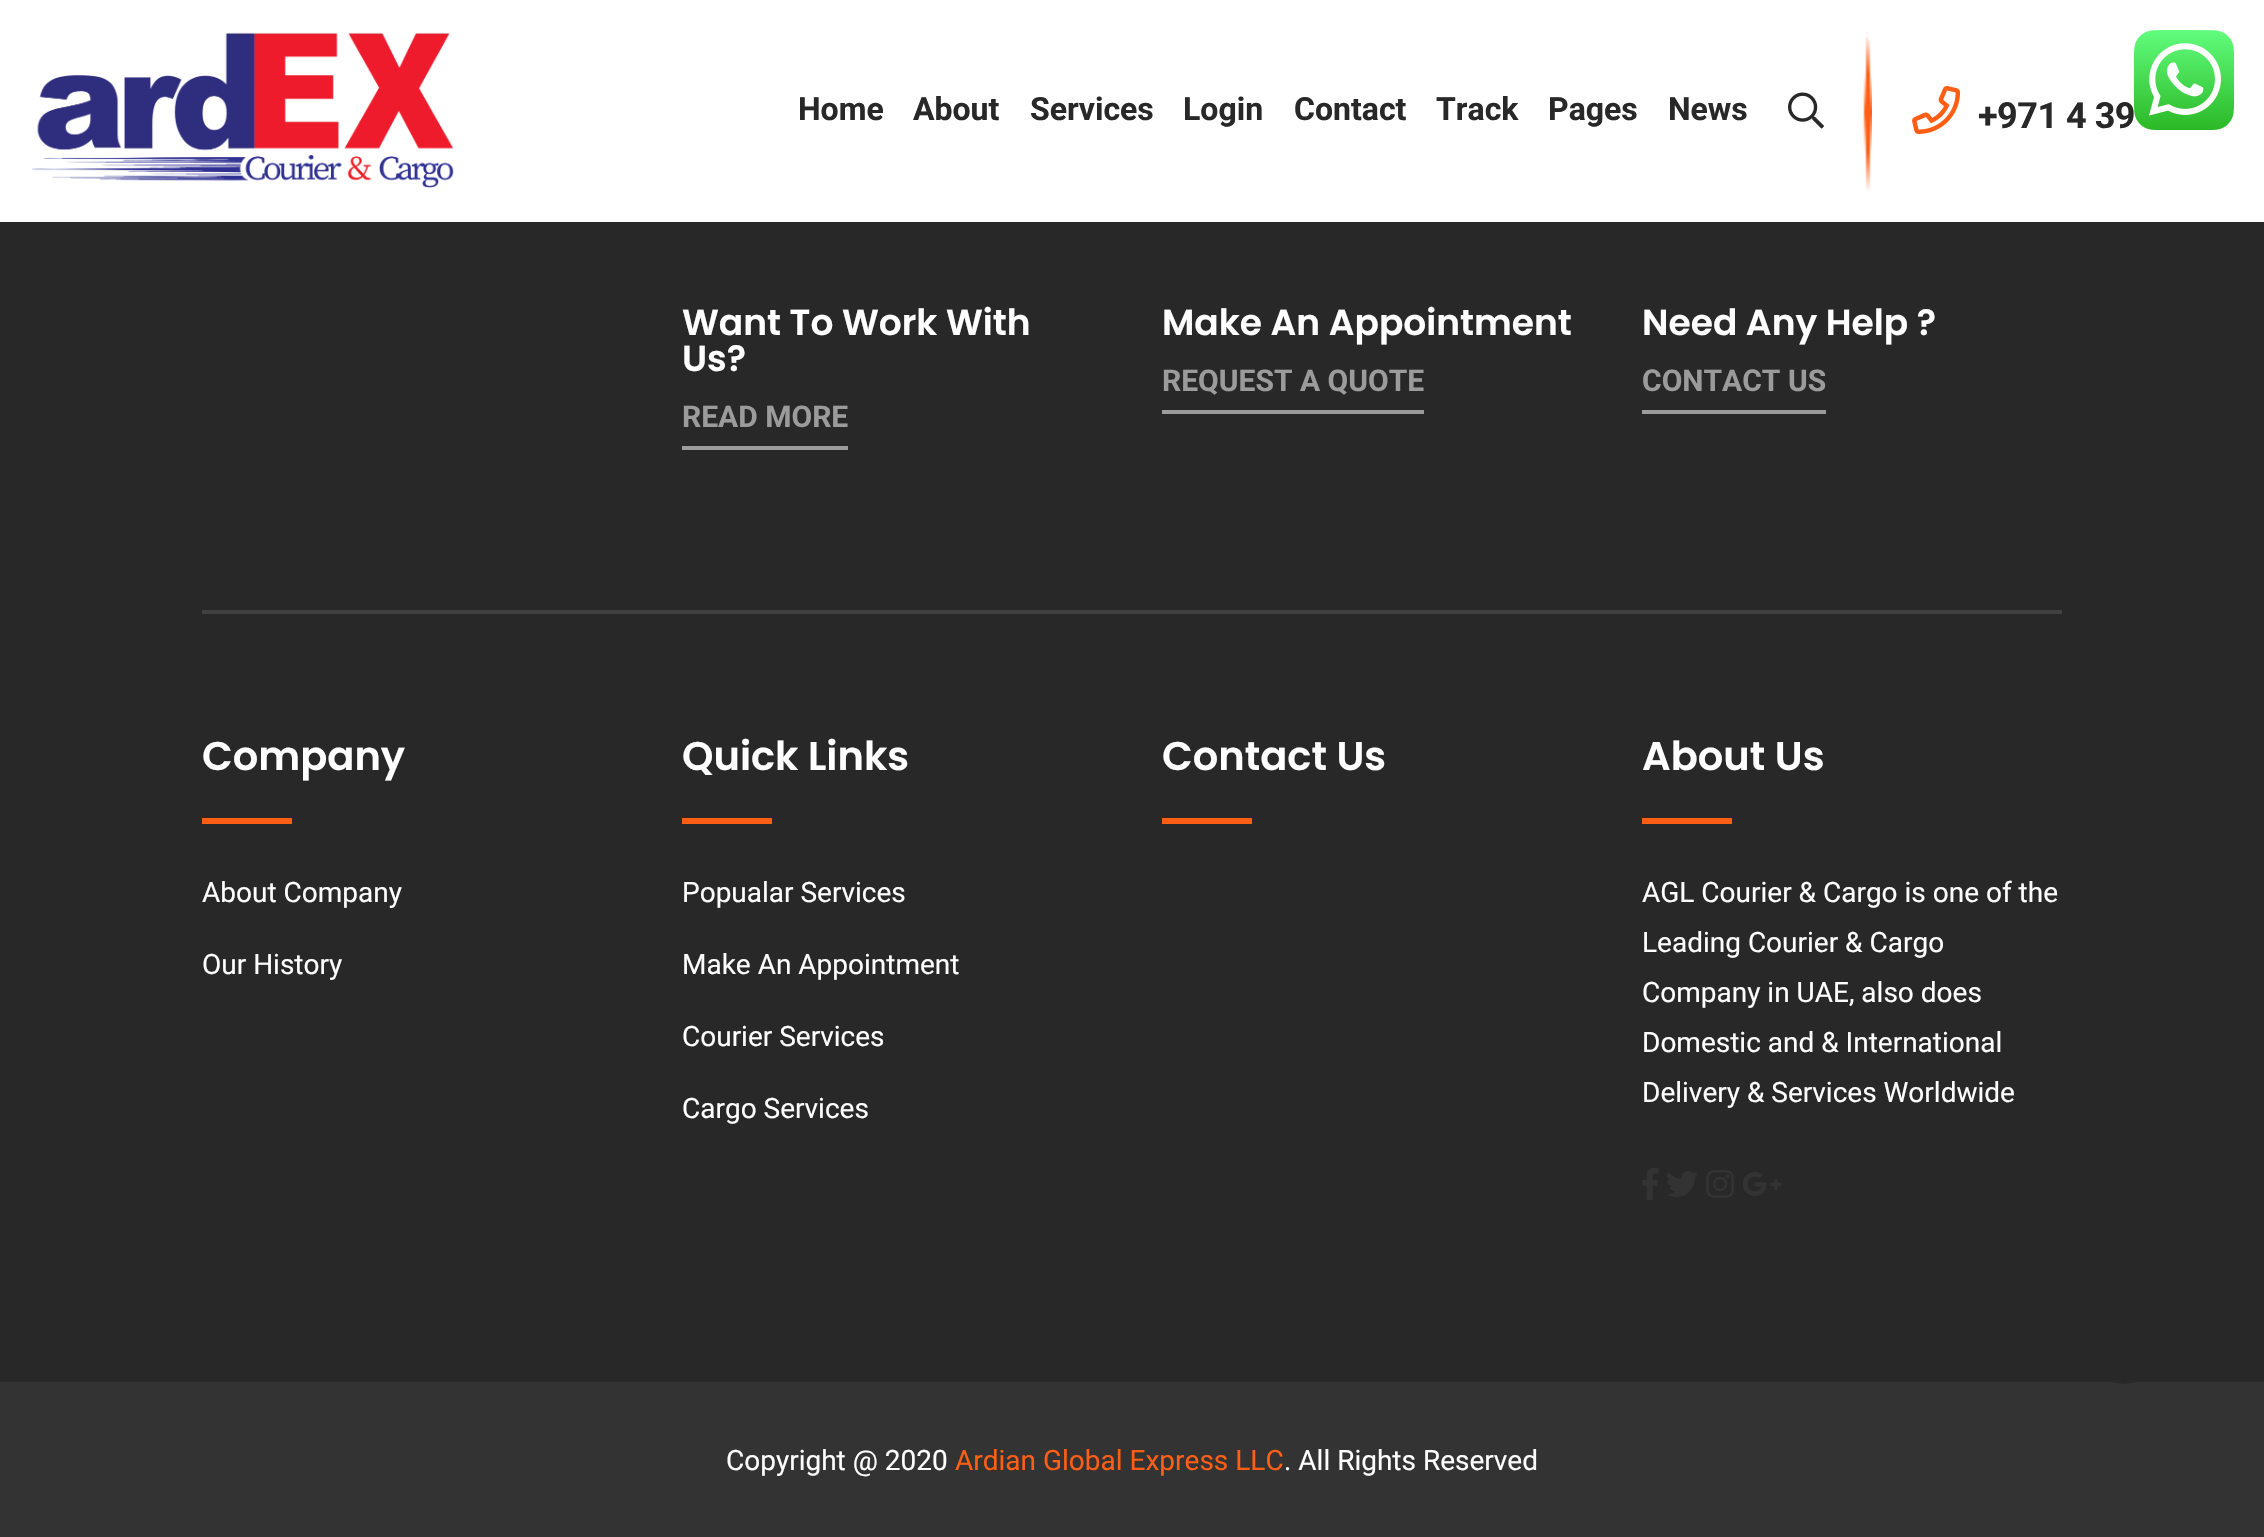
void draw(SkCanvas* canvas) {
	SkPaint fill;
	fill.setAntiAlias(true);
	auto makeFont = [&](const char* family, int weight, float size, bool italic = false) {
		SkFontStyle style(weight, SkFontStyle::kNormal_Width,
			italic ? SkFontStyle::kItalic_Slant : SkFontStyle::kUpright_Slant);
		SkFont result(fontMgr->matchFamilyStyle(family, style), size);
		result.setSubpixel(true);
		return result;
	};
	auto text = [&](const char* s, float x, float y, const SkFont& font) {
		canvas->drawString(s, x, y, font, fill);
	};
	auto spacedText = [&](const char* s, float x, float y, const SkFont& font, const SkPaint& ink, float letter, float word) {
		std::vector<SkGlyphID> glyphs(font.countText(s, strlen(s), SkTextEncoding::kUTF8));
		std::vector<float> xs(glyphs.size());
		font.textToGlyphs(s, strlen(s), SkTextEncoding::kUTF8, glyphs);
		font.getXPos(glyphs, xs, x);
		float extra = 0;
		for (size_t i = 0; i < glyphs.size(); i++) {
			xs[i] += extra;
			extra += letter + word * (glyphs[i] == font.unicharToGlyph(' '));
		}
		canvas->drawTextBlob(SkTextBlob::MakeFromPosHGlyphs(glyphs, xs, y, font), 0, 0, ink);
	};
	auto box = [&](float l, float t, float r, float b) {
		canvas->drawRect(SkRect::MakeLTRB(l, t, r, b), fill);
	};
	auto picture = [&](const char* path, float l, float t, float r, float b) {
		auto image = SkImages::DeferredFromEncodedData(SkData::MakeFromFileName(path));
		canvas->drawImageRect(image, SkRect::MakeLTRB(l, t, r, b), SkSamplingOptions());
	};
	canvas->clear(0xFF282828);
	fill.setColor(0xFFFFFFFF);
	box(0, 0, 2264, 222);
	picture("image0.png", 32, 32, 454, 188);
	picture("image1.png", 1788, 92, 1824, 129);
	picture("image2.png", 1863, 32, 1872, 192);
	picture("image3.png", 1912, 86, 1961, 134);
	picture("image4.png", 2134, 30, 2234, 130);
	fill.setColor(0xFF9B9B9B);
	box(682, 446, 848, 450);
	box(1162, 410, 1424, 414);
	box(1642, 410, 1826, 414);
	fill.setColor(0xFF414141);
	box(202, 610, 2062, 614);
	fill.setColor(0xFFFF5E14);
	box(202, 818, 292, 824);
	box(682, 818, 772, 824);
	box(1162, 818, 1252, 824);
	box(1642, 818, 1732, 824);
	picture("image5.png", 1642, 1168, 1659, 1200);
	picture("image6.png", 1667, 1171, 1698, 1197);
	picture("image7.png", 1706, 1170, 1734, 1198);
	picture("image8.png", 1743, 1172, 1781, 1196);
	fill.setColor(0xFF333333);
	box(0, 1382, 2264, 1537);
	fill.setColor(0xFF282828);
	canvas->drawCircle(2124, 1344, 40, fill);
	auto font1 = makeFont("Roboto", 700, 32);
	text("Home", 798, 120, font1);
	text("About", 913, 120, font1);
	text("Services", 1030, 120, font1);
	text("Login", 1183, 120, font1);
	text("Contact", 1294, 120, font1);
	text("Track", 1436, 120, font1);
	text("Pages", 1548, 120, font1);
	text("News", 1668, 120, font1);
	auto font2 = makeFont("Roboto", 700, 36);
	spacedText("+971 4 39", 1978, 128, font2, fill, -0.5f, 0);
	auto font3 = makeFont("Poppins", 600, 36);
	fill.setColor(0xFFFFFFFF);
	text("Want To Work With", 682, 335, font3);
	text("Us?", 682, 371, font3);
	auto font4 = makeFont("Roboto", 700, 30);
	fill.setColor(0xFF9B9B9B);
	text("READ MORE", 682, 427, font4);
	fill.setColor(0xFFFFFFFF);
	text("Make An Appointment", 1162, 335, font3);
	fill.setColor(0xFF9B9B9B);
	text("REQUEST A QUOTE", 1162, 391, font4);
	fill.setColor(0xFFFFFFFF);
	text("Need Any Help ?", 1642, 335, font3);
	fill.setColor(0xFF9B9B9B);
	text("CONTACT US", 1642, 391, font4);
	auto font5 = makeFont("Poppins", 600, 40);
	fill.setColor(0xFFFFFFFF);
	text("Company", 202, 770, font5);
	auto font6 = makeFont("Roboto", 400, 28);
	text("About Company", 202, 902, font6);
	text("Our History", 202, 974, font6);
	text("Quick Links", 682, 770, font5);
	text("Popualar Services", 682, 902, font6);
	text("Make An Appointment", 682, 974, font6);
	text("Courier Services", 682, 1046, font6);
	text("Cargo Services", 682, 1118, font6);
	text("Contact Us", 1162, 770, font5);
	text("About Us", 1642, 770, font5);
	text("AGL Courier & Cargo is one of the", 1642, 902, font6);
	text("Leading Courier & Cargo", 1642, 952, font6);
	text("Company in UAE, also does", 1642, 1002, font6);
	text("Domestic and & International", 1642, 1052, font6);
	text("Delivery & Services Worldwide", 1642, 1102, font6);
	text("Copyright @ 2020", 726, 1470, font6);
	fill.setColor(0xFFFF5E14);
	text("Ardian Global Express LLC", 955, 1470, font6);
	fill.setColor(0xFFFFFFFF);
	text(". All Rights Reserved", 1284, 1470, font6);
}
